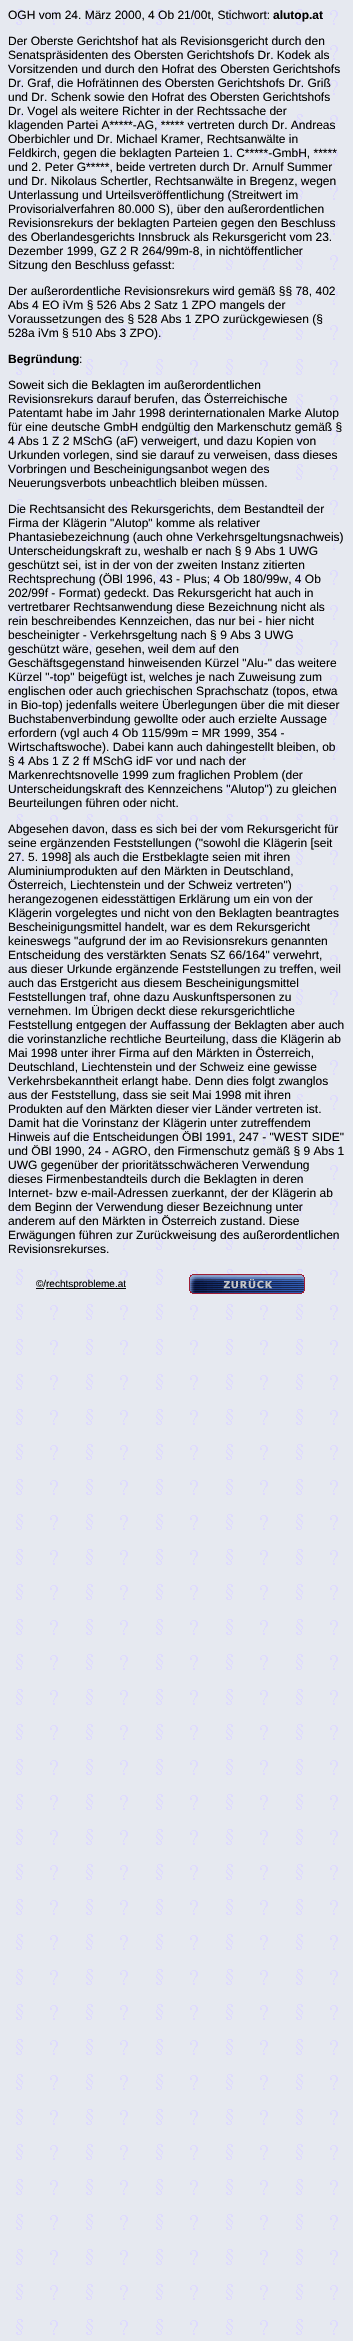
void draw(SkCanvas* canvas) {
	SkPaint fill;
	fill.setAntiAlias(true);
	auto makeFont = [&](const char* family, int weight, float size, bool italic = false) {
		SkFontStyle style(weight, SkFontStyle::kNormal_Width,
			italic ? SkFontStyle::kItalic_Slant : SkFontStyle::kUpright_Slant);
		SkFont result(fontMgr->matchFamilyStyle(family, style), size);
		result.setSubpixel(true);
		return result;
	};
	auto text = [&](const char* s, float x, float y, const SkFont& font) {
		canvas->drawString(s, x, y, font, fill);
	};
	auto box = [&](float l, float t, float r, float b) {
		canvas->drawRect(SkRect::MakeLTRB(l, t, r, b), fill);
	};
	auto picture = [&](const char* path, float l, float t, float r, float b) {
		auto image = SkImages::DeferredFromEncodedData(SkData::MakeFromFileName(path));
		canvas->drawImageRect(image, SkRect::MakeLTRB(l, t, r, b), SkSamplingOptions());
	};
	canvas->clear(0xFFFFFFFF);
	picture("image0.png", 0, 0, 353, 2341);
	fill.setColor(0xFF000000);
	box(36, 1288, 44, 1289);
	box(46, 1288, 126, 1289);
	picture("image1.png", 189, 1274, 305, 1294);
	auto font1 = makeFont("Liberation Sans", 400, 12);
	text("OGH vom 24. März 2000, 4 Ob 21/00t, Stichwort:", 8, 19, font1);
	auto font2 = makeFont("Liberation Sans", 700, 12);
	text("alutop.at", 273, 19, font2);
	text("Der Oberste Gerichtshof hat als Revisionsgericht durch den", 8, 45, font1);
	text("Senatspräsidenten des Obersten Gerichtshofs Dr. Kodek als", 8, 59, font1);
	text("Vorsitzenden und durch den Hofrat des Obersten Gerichtshofs", 8, 73, font1);
	text("Dr. Graf, die Hofrätinnen des Obersten Gerichtshofs Dr. Griß", 8, 87, font1);
	text("und Dr. Schenk sowie den Hofrat des Obersten Gerichtshofs", 8, 101, font1);
	text("Dr. Vogel als weitere Richter in der Rechtssache der", 8, 115, font1);
	text("klagenden Partei A*****-AG, ***** vertreten durch Dr. Andreas", 8, 129, font1);
	text("Oberbichler und Dr. Michael Kramer, Rechtsanwälte in", 8, 143, font1);
	text("Feldkirch, gegen die beklagten Parteien 1. C*****-GmbH, *****", 8, 157, font1);
	text("und 2. Peter G*****, beide vertreten durch Dr. Arnulf Summer", 8, 171, font1);
	text("und Dr. Nikolaus Schertler, Rechtsanwälte in Bregenz, wegen", 8, 185, font1);
	text("Unterlassung und Urteilsveröffentlichung (Streitwert im", 8, 199, font1);
	text("Provisorialverfahren 80.000 S), über den außerordentlichen", 8, 213, font1);
	text("Revisionsrekurs der beklagten Parteien gegen den Beschluss", 8, 227, font1);
	text("des Oberlandesgerichts Innsbruck als Rekursgericht vom 23.", 8, 241, font1);
	text("Dezember 1999, GZ 2 R 264/99m-8, in nichtöffentlicher", 8, 255, font1);
	text("Sitzung den Beschluss gefasst:", 8, 269, font1);
	text("Der außerordentliche Revisionsrekurs wird gemäß §§ 78, 402", 8, 295, font1);
	text("Abs 4 EO iVm § 526 Abs 2 Satz 1 ZPO mangels der", 8, 309, font1);
	text("Voraussetzungen des § 528 Abs 1 ZPO zurückgewiesen (§", 8, 323, font1);
	text("528a iVm § 510 Abs 3 ZPO).", 8, 337, font1);
	text("Begründung", 8, 363, font2);
	text(":", 79, 363, font1);
	text("Soweit sich die Beklagten im außerordentlichen", 8, 389, font1);
	text("Revisionsrekurs darauf berufen, das Österreichische", 8, 403, font1);
	text("Patentamt habe im Jahr 1998 derinternationalen Marke Alutop", 8, 417, font1);
	text("für eine deutsche GmbH endgültig den Markenschutz gemäß §", 8, 431, font1);
	text("4 Abs 1 Z 2 MSchG (aF) verweigert, und dazu Kopien von", 8, 445, font1);
	text("Urkunden vorlegen, sind sie darauf zu verweisen, dass dieses", 8, 459, font1);
	text("Vorbringen und Bescheinigungsanbot wegen des", 8, 473, font1);
	text("Neuerungsverbots unbeachtlich bleiben müssen.", 8, 487, font1);
	text("Die Rechtsansicht des Rekursgerichts, dem Bestandteil der", 8, 513, font1);
	text("Firma der Klägerin \"Alutop\" komme als relativer", 8, 527, font1);
	text("Phantasiebezeichnung (auch ohne Verkehrsgeltungsnachweis)", 8, 541, font1);
	text("Unterscheidungskraft zu, weshalb er nach § 9 Abs 1 UWG", 8, 555, font1);
	text("geschützt sei, ist in der von der zweiten Instanz zitierten", 8, 569, font1);
	text("Rechtsprechung (ÖBl 1996, 43 - Plus; 4 Ob 180/99w, 4 Ob", 8, 583, font1);
	text("202/99f - Format) gedeckt. Das Rekursgericht hat auch in", 8, 597, font1);
	text("vertretbarer Rechtsanwendung diese Bezeichnung nicht als", 8, 611, font1);
	text("rein beschreibendes Kennzeichen, das nur bei - hier nicht", 8, 625, font1);
	text("bescheinigter - Verkehrsgeltung nach § 9 Abs 3 UWG", 8, 639, font1);
	text("geschützt wäre, gesehen, weil dem auf den", 8, 653, font1);
	text("Geschäftsgegenstand hinweisenden Kürzel \"Alu-\" das weitere", 8, 667, font1);
	text("Kürzel \"-top\" beigefügt ist, welches je nach Zuweisung zum", 8, 681, font1);
	text("englischen oder auch griechischen Sprachschatz (topos, etwa", 8, 695, font1);
	text("in Bio-top) jedenfalls weitere Überlegungen über die mit dieser", 8, 709, font1);
	text("Buchstabenverbindung gewollte oder auch erzielte Aussage", 8, 723, font1);
	text("erfordern (vgl auch 4 Ob 115/99m = MR 1999, 354 -", 8, 737, font1);
	text("Wirtschaftswoche). Dabei kann auch dahingestellt bleiben, ob", 8, 751, font1);
	text("§ 4 Abs 1 Z 2 ff MSchG idF vor und nach der", 8, 765, font1);
	text("Markenrechtsnovelle 1999 zum fraglichen Problem (der", 8, 779, font1);
	text("Unterscheidungskraft des Kennzeichens \"Alutop\") zu gleichen", 8, 793, font1);
	text("Beurteilungen führen oder nicht.", 8, 807, font1);
	text("Abgesehen davon, dass es sich bei der vom Rekursgericht für", 8, 833, font1);
	text("seine ergänzenden Feststellungen (\"sowohl die Klägerin [seit", 8, 847, font1);
	text("27. 5. 1998] als auch die Erstbeklagte seien mit ihren", 8, 861, font1);
	text("Aluminiumprodukten auf den Märkten in Deutschland,", 8, 875, font1);
	text("Österreich, Liechtenstein und der Schweiz vertreten\")", 8, 889, font1);
	text("herangezogenen eidesstättigen Erklärung um ein von der", 8, 903, font1);
	text("Klägerin vorgelegtes und nicht von den Beklagten beantragtes", 8, 917, font1);
	text("Bescheinigungsmittel handelt, war es dem Rekursgericht", 8, 931, font1);
	text("keineswegs \"aufgrund der im ao Revisionsrekurs genannten", 8, 945, font1);
	text("Entscheidung des verstärkten Senats SZ 66/164\" verwehrt,", 8, 959, font1);
	text("aus dieser Urkunde ergänzende Feststellungen zu treffen, weil", 8, 973, font1);
	text("auch das Erstgericht aus diesem Bescheinigungsmittel", 8, 987, font1);
	text("Feststellungen traf, ohne dazu Auskunftspersonen zu", 8, 1001, font1);
	text("vernehmen. Im Übrigen deckt diese rekursgerichtliche", 8, 1015, font1);
	text("Feststellung entgegen der Auffassung der Beklagten aber auch", 8, 1029, font1);
	text("die vorinstanzliche rechtliche Beurteilung, dass die Klägerin ab", 8, 1043, font1);
	text("Mai 1998 unter ihrer Firma auf den Märkten in Österreich,", 8, 1057, font1);
	text("Deutschland, Liechtenstein und der Schweiz eine gewisse", 8, 1071, font1);
	text("Verkehrsbekanntheit erlangt habe. Denn dies folgt zwanglos", 8, 1085, font1);
	text("aus der Feststellung, dass sie seit Mai 1998 mit ihren", 8, 1099, font1);
	text("Produkten auf den Märkten dieser vier Länder vertreten ist.", 8, 1113, font1);
	text("Damit hat die Vorinstanz der Klägerin unter zutreffendem", 8, 1127, font1);
	text("Hinweis auf die Entscheidungen ÖBl 1991, 247 - \"WEST SIDE\"", 8, 1141, font1);
	text("und ÖBl 1990, 24 - AGRO, den Firmenschutz gemäß § 9 Abs 1", 8, 1155, font1);
	text("UWG gegenüber der prioritätsschwächeren Verwendung", 8, 1169, font1);
	text("dieses Firmenbestandteils durch die Beklagten in deren", 8, 1183, font1);
	text("Internet- bzw e-mail-Adressen zuerkannt, der der Klägerin ab", 8, 1197, font1);
	text("dem Beginn der Verwendung dieser Bezeichnung unter", 8, 1211, font1);
	text("anderem auf den Märkten in Österreich zustand. Diese", 8, 1225, font1);
	text("Erwägungen führen zur Zurückweisung des außerordentlichen", 8, 1239, font1);
	text("Revisionsrekurses.", 8, 1253, font1);
	auto font3 = makeFont("Liberation Sans", 400, 10);
	text("©/", 36, 1287, font3);
	text("rechtsprobleme.at", 46, 1287, font3);
}
